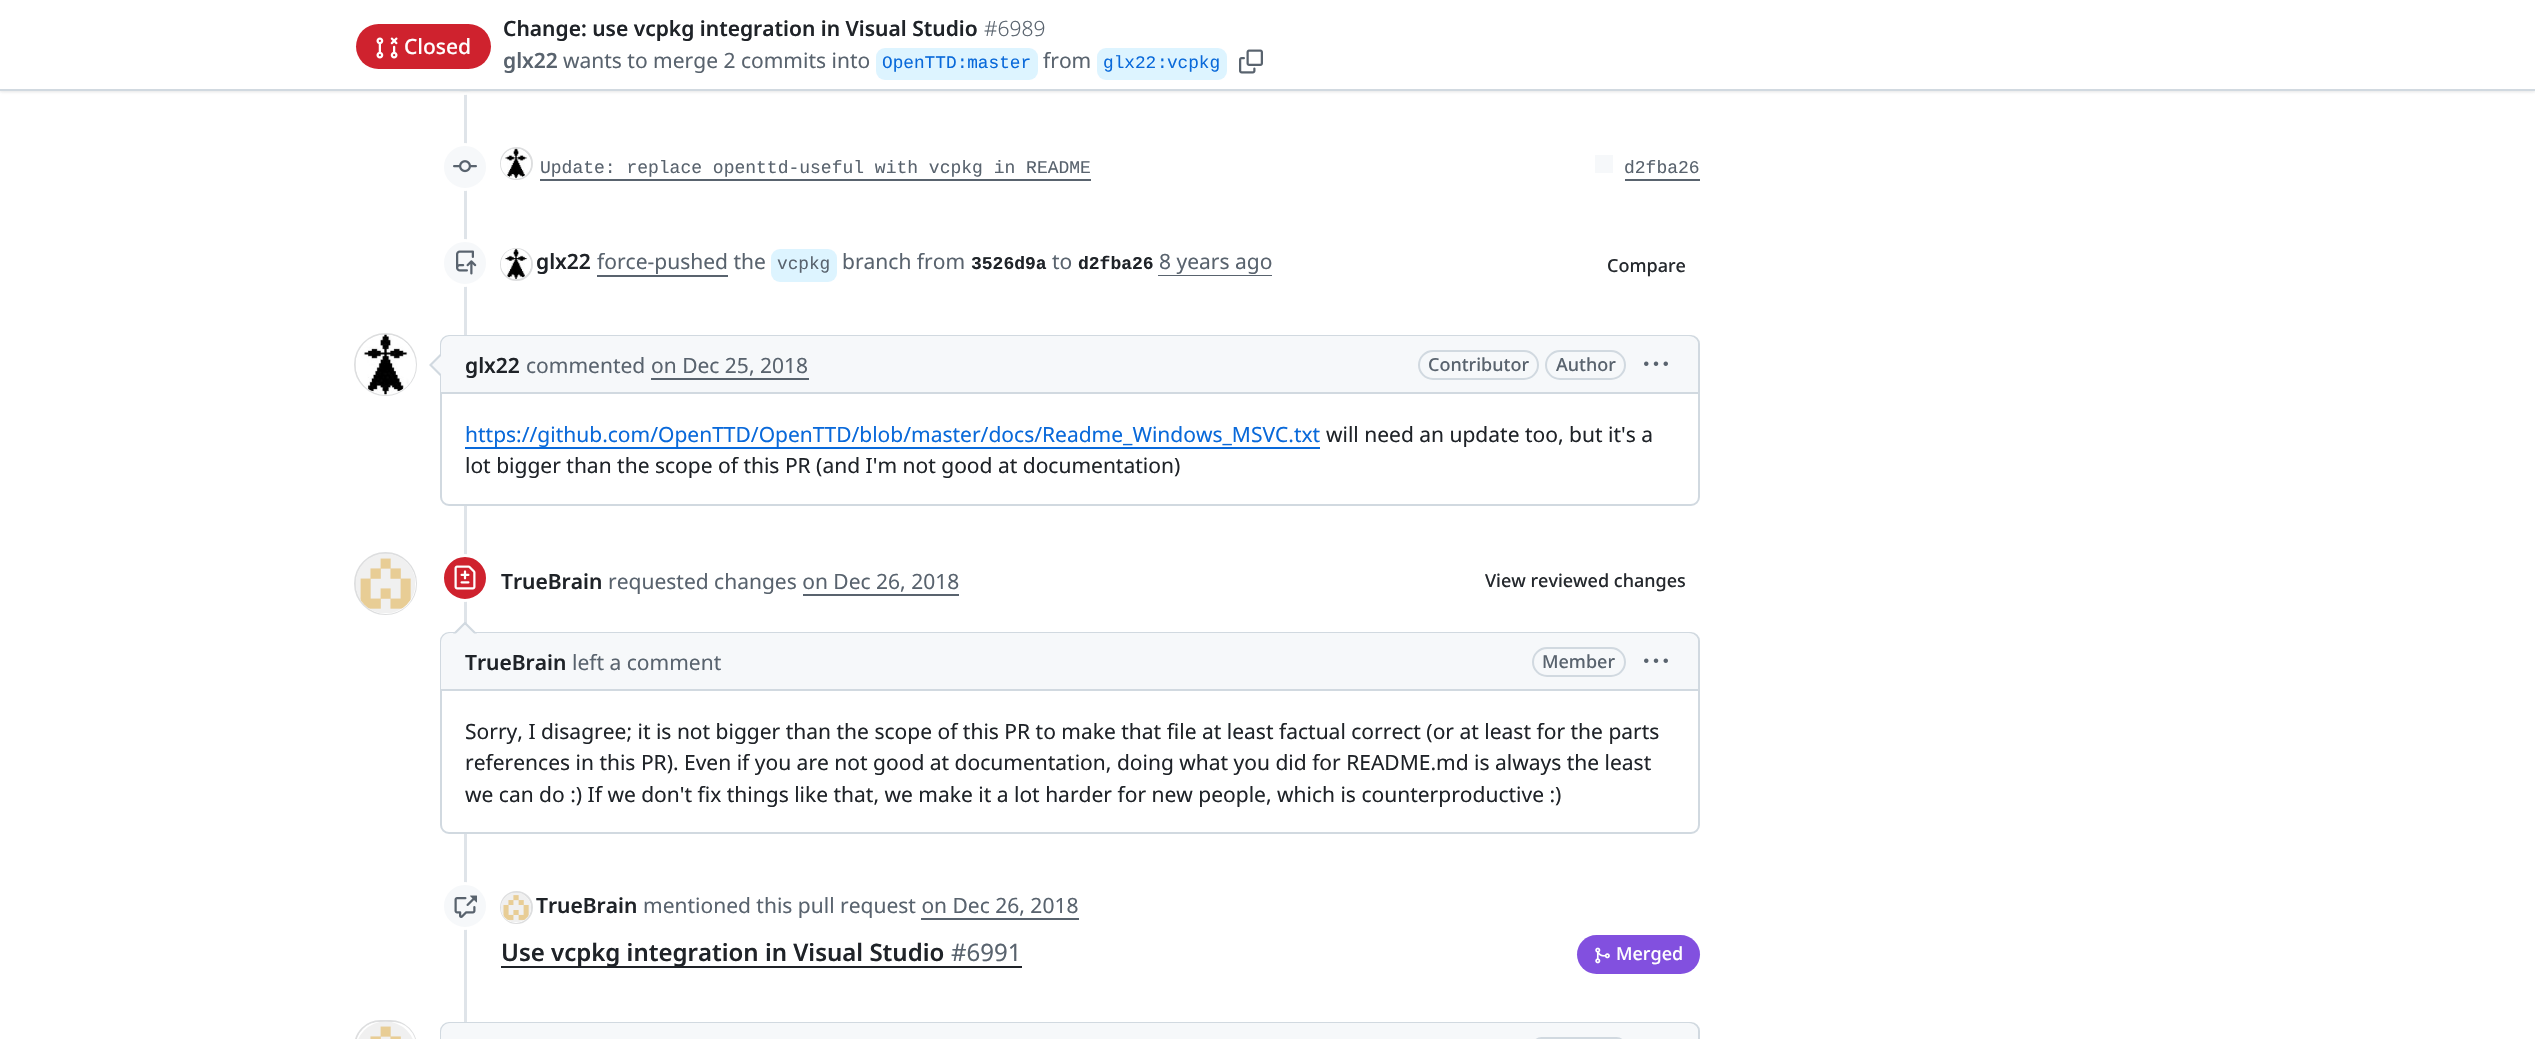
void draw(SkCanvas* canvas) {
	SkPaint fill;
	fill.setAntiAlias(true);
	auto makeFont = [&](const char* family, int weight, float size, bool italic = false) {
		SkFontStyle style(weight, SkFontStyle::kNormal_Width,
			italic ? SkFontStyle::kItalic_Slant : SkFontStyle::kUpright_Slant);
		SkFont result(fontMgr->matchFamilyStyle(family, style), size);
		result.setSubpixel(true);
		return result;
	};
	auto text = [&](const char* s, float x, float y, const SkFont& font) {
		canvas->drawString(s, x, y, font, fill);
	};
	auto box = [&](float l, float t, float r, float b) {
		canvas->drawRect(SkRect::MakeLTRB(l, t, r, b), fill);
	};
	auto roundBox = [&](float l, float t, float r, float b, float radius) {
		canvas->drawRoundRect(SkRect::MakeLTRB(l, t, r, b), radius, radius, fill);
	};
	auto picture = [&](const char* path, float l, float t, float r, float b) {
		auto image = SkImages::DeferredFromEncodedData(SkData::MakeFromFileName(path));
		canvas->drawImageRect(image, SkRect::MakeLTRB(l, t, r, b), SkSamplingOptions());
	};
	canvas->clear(0xFFFFFFFF);
	fill.setColor(0xFFDFE4E9);
	box(464, 94, 467, 626);
	fill.setColor(0xFFF6F8FA);
	canvas->drawCircle(465, 71, 22.5f, fill);
	fill.setStyle(SkPaint::kStroke_Style);
	fill.setStrokeWidth(3);
	fill.setColor(0xFFFFFFFF);
	canvas->drawCircle(465, 71, 22.5f, fill);
	fill.setStyle(SkPaint::kFill_Style);
	fill.setColor(0x0F1F2328);
	fill.setMaskFilter(SkMaskFilter::MakeBlur(kNormal_SkBlurStyle, 2));
	canvas->drawRect(SkRect::MakeLTRB(0, 2, 2535, 92), fill);
	fill.setMaskFilter(nullptr);
	fill.setMaskFilter(SkMaskFilter::MakeBlur(kNormal_SkBlurStyle, 1));
	canvas->drawRect(SkRect::MakeLTRB(0, 2, 2535, 92), fill);
	fill.setMaskFilter(nullptr);
	fill.setColor(0xFFFFFFFF);
	box(0, 0, 2535, 89);
	fill.setColor(0xFFD1D9E0);
	box(0, 89, 2535, 91);
	fill.setColor(0xFFCF222E);
	roundBox(356, 24, 491, 69, 22.5f);
	picture("image0.png", 376, 37, 398, 59);
	fill.setColor(0xFFDDF4FF);
	roundBox(876, 48, 1038, 80, 9);
	roundBox(1097, 48, 1227, 80, 9);
	picture("image1.png", 1239, 49, 1263, 74);
	fill.setColor(0xFFF6F8FA);
	canvas->drawCircle(465, 167, 22.5f, fill);
	fill.setStyle(SkPaint::kStroke_Style);
	fill.setColor(0xFFFFFFFF);
	canvas->drawCircle(465, 167, 22.5f, fill);
	picture("image2.png", 453, 160, 477, 173);
	fill.setStrokeWidth(2);
	fill.setColor(0xFFDDDEDF);
	canvas->drawCircle(516.5f, 163.5f, 15.5f, fill);
	fill.setStyle(SkPaint::kFill_Style);
	fill.setColor(0xFFFFFFFF);
	canvas->drawCircle(516, 164, 15, fill);
	picture("image3.png", 501, 148, 528, 179);
	fill.setColor(0xFF59636E);
	box(540, 179, 1091, 181);
	fill.setColor(0xFFF6F8FA);
	box(1595, 155, 1613, 173);
	fill.setColor(0xFF59636E);
	box(1625, 179, 1700, 181);
	fill.setColor(0xFFF6F8FA);
	canvas->drawCircle(465, 263, 22.5f, fill);
	fill.setStyle(SkPaint::kStroke_Style);
	fill.setStrokeWidth(3);
	fill.setColor(0xFFFFFFFF);
	canvas->drawCircle(465, 263, 22.5f, fill);
	picture("image4.png", 456, 250, 477, 275);
	fill.setStrokeWidth(2);
	fill.setColor(0xFFDDDEDF);
	canvas->drawCircle(516.5f, 264.5f, 15.5f, fill);
	fill.setStyle(SkPaint::kFill_Style);
	fill.setColor(0xFFFFFFFF);
	canvas->drawCircle(516, 264, 15, fill);
	picture("image5.png", 501, 249, 531, 279);
	fill.setColor(0xFF59636E);
	box(597, 275, 728, 277);
	fill.setColor(0xFFDDF4FF);
	roundBox(771, 249, 837, 282, 9);
	fill.setColor(0xFF59636E);
	box(1158, 275, 1272, 276);
	fill.setStyle(SkPaint::kStroke_Style);
	fill.setColor(0xFFDDDEDF);
	canvas->drawCircle(385.5f, 364.5f, 30.5f, fill);
	fill.setStyle(SkPaint::kFill_Style);
	fill.setColor(0xFFFFFFFF);
	canvas->drawCircle(386, 365, 30, fill);
	picture("image6.png", 355, 334, 410, 395);
	canvas->drawRoundRect(SkRect::MakeLTRB(441, 336, 1699, 505), 8, 8, fill);
	fill.setStyle(SkPaint::kStroke_Style);
	fill.setColor(0xFFD1D9E0);
	canvas->drawRoundRect(SkRect::MakeLTRB(441, 336, 1699, 505), 8, 8, fill);
	fill.setStyle(SkPaint::kFill_Style);
	canvas->drawPath(SkPathBuilder().moveTo(429, 365).lineTo(441, 353).lineTo(441, 377).close().detach(), fill);
	fill.setColor(0xFFF6F8FA);
	canvas->drawPath(SkPathBuilder().moveTo(450, 336).lineTo(1689, 336).cubicTo(1694, 336, 1698, 340, 1698, 345).lineTo(1698, 393).lineTo(441, 393).lineTo(441, 345).cubicTo(441, 340, 445, 336, 450, 336).close().detach(), fill);
	canvas->drawPath(SkPathBuilder().moveTo(432, 365).lineTo(444, 353).lineTo(444, 377).close().detach(), fill);
	fill.setColor(0xFFD1D9E0);
	box(441, 392, 1698, 394);
	fill.setColor(0xFF59636E);
	box(651, 378, 809, 380);
	fill.setStyle(SkPaint::kStroke_Style);
	fill.setColor(0xFFD1D9E0);
	canvas->drawRoundRect(SkRect::MakeLTRB(1419, 351, 1538, 379), 14, 14, fill);
	canvas->drawRoundRect(SkRect::MakeLTRB(1546, 351, 1625, 379), 14, 14, fill);
	picture("image7.png", 1644, 361, 1668, 366);
	fill.setStyle(SkPaint::kFill_Style);
	fill.setColor(0xFF0969DA);
	box(465, 447, 1320, 449);
	fill.setStyle(SkPaint::kStroke_Style);
	fill.setColor(0xFFDDDEDF);
	canvas->drawCircle(385.5f, 583.5f, 30.5f, fill);
	fill.setStyle(SkPaint::kFill_Style);
	fill.setColor(0xFFFFFFFF);
	canvas->drawCircle(386, 584, 30, fill);
	picture("image8.png", 355, 553, 415, 613);
	fill.setColor(0xFFCF222E);
	canvas->drawCircle(465, 578, 22.5f, fill);
	fill.setStyle(SkPaint::kStroke_Style);
	fill.setStrokeWidth(3);
	fill.setColor(0xFFFFFFFF);
	canvas->drawCircle(465, 578, 22.5f, fill);
	picture("image9.png", 454, 565, 476, 590);
	fill.setStyle(SkPaint::kFill_Style);
	fill.setColor(0xFF59636E);
	box(803, 594, 959, 596);
	fill.setStyle(SkPaint::kStroke_Style);
	fill.setStrokeWidth(2);
	fill.setColor(0xFFD1D9E0);
	canvas->drawRoundRect(SkRect::MakeLTRB(441, 633, 1699, 833), 8, 8, fill);
	fill.setStyle(SkPaint::kFill_Style);
	fill.setColor(0xFFF6F8FA);
	canvas->drawPath(SkPathBuilder().moveTo(450, 633).lineTo(1689, 633).cubicTo(1694, 633, 1698, 637, 1698, 642).lineTo(1698, 690).lineTo(441, 690).lineTo(441, 642).cubicTo(441, 637, 445, 633, 450, 633).close().detach(), fill);
	fill.setColor(0xFFD1D9E0);
	canvas->drawPath(SkPathBuilder().moveTo(465.5f, 622).lineTo(477, 633.5f).lineTo(453, 633.5f).lineTo(464.5f, 622).close().detach(), fill);
	fill.setColor(0xFFF6F8FA);
	canvas->drawPath(SkPathBuilder().moveTo(465.5f, 625).lineTo(477, 636.5f).lineTo(453, 636.5f).lineTo(464.5f, 625).close().detach(), fill);
	fill.setColor(0xFFD1D9E0);
	box(441, 689, 1698, 691);
	fill.setStyle(SkPaint::kStroke_Style);
	canvas->drawRoundRect(SkRect::MakeLTRB(1533, 648, 1625, 676), 14, 14, fill);
	picture("image7.png", 1644, 658, 1668, 663);
	fill.setStyle(SkPaint::kFill_Style);
	fill.setColor(0xFFDFE4E9);
	box(464, 834, 467, 1022);
	fill.setColor(0xFFF6F8FA);
	canvas->drawCircle(465, 906, 22.5f, fill);
	fill.setStyle(SkPaint::kStroke_Style);
	fill.setStrokeWidth(3);
	fill.setColor(0xFFFFFFFF);
	canvas->drawCircle(465, 906, 22.5f, fill);
	picture("image10.png", 454, 895, 477, 918);
	fill.setStrokeWidth(2);
	fill.setColor(0xFFDDDEDF);
	canvas->drawCircle(516.5f, 907.5f, 15.5f, fill);
	fill.setStyle(SkPaint::kFill_Style);
	fill.setColor(0xFFFFFFFF);
	canvas->drawCircle(516, 908, 15, fill);
	picture("image11.png", 501, 892, 531, 922);
	fill.setColor(0xFF59636E);
	box(921, 918, 1079, 920);
	fill.setColor(0xFF1F2328);
	box(501, 966, 1022, 968);
	fill.setColor(0xFF8250DF);
	roundBox(1577, 935, 1700, 974, 19.5f);
	picture("image12.png", 1595, 947, 1610, 964);
	fill.setStyle(SkPaint::kStroke_Style);
	fill.setColor(0xFFDDDEDF);
	canvas->drawRoundRect(SkRect::MakeLTRB(355, 1021, 416, 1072), 30.5f, 30.5f, fill);
	fill.setStyle(SkPaint::kFill_Style);
	fill.setColor(0xFFFFFFFF);
	roundBox(356, 1022, 416, 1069, 30);
	picture("image13.png", 358, 1021, 413, 1039);
	fill.setStyle(SkPaint::kStroke_Style);
	fill.setColor(0xFFD1D9E0);
	canvas->drawRoundRect(SkRect::MakeLTRB(441, 1023, 1699, 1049), 8, 8, fill);
	fill.setStyle(SkPaint::kFill_Style);
	fill.setColor(0xFFF6F8FA);
	canvas->drawPath(SkPathBuilder().moveTo(450, 1023).lineTo(1689, 1023).cubicTo(1694, 1023, 1698, 1027, 1698, 1032).lineTo(1698, 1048).lineTo(441, 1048).lineTo(441, 1032).cubicTo(441, 1027, 445, 1023, 450, 1023).close().detach(), fill);
	fill.setStyle(SkPaint::kStroke_Style);
	fill.setColor(0xFFD1D9E0);
	canvas->drawRoundRect(SkRect::MakeLTRB(1533, 1038, 1625, 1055), 14, 14, fill);
	auto font1 = makeFont("Noto Sans", 500, 21);
	fill.setStyle(SkPaint::kFill_Style);
	fill.setColor(0xFFFFFFFF);
	text("Closed", 404, 54, font1);
	auto font2 = makeFont("Noto Sans", 600, 21);
	fill.setColor(0xFF1F2328);
	text("Change: use vcpkg integration in Visual Studio", 503, 36, font2);
	auto font3 = makeFont("Noto Sans", 300, 21);
	fill.setColor(0xFF59636E);
	text("#6989", 984, 36, font3);
	text("glx22", 503, 68, font2);
	auto font4 = makeFont("Noto Sans", 400, 21);
	text("wants to merge 2 commits into", 563, 68, font4);
	auto font5 = makeFont("Liberation Mono", 400, 17.75f);
	fill.setColor(0xFF0969DA);
	text(":", 957, 68, font5);
	text("OpenTTD master", 882, 68, font5);
	fill.setColor(0xFF59636E);
	text("from", 1043, 68, font4);
	fill.setColor(0xFF0969DA);
	text(":", 1157, 68, font5);
	text("glx22 vcpkg", 1103, 68, font5);
	auto font6 = makeFont("Liberation Mono", 400, 18);
	fill.setColor(0xFF59636E);
	text("Update: replace openttd-useful with vcpkg in README", 540, 173, font6);
	text("d2fba26", 1624, 173, font6);
	fill.setColor(0xFF1F2328);
	text("glx22", 536, 269, font2);
	fill.setColor(0xFF59636E);
	text("force-pushed the", 597, 269, font4);
	text("vcpkg", 777, 269, font5);
	text("branch from", 842, 269, font4);
	auto font7 = makeFont("Liberation Mono", 700, 18);
	fill.setColor(0xFF1F2328);
	text("3526d9a", 971, 269, font7);
	fill.setColor(0xFF59636E);
	text("to", 1052, 269, font4);
	fill.setColor(0xFF1F2328);
	text("d2fba26", 1078, 269, font7);
	fill.setColor(0xFF59636E);
	text("8 years ago", 1159, 269, font4);
	auto font8 = makeFont("Noto Sans", 500, 18);
	fill.setColor(0xFF25292E);
	text("Compare", 1607, 272, font8);
	fill.setColor(0xFF1F2328);
	text("glx22", 465, 373, font2);
	fill.setColor(0xFF59636E);
	text("commented", 526, 373, font4);
	text("on Dec 25, 2018", 651, 373, font4);
	text("Contributor", 1428, 371, font8);
	text("Author", 1556, 371, font8);
	fill.setColor(0xFF0969DA);
	text("https://github.com/OpenTTD/OpenTTD/blob/master/docs/Readme_Windows_MSVC.txt", 465, 442, font4);
	fill.setColor(0xFF1F2328);
	text("will need an update too, but it's a", 1326, 442, font4);
	text("lot bigger than the scope of this PR (and I'm not good at documentation)", 465, 473, font4);
	text("TrueBrain", 501, 589, font2);
	fill.setColor(0xFF59636E);
	text("requested changes on Dec 26, 2018", 608, 589, font4);
	fill.setColor(0xFF25292E);
	text("View reviewed changes", 1485, 587, font8);
	fill.setColor(0xFF1F2328);
	text("TrueBrain", 465, 670, font2);
	fill.setColor(0xFF59636E);
	text("left a comment", 572, 670, font4);
	text("Member", 1542, 668, font8);
	fill.setColor(0xFF1F2328);
	text("Sorry, I disagree; it is not bigger than the scope of this PR to make that file at least factual correct (or at least for the parts", 465, 739, font4);
	text("references in this PR). Even if you are not good at documentation, doing what you did for README.md is always the least", 465, 770, font4);
	text("we can do :) If we don't fix things like that, we make it a lot harder for new people, which is counterproductive :)", 465, 802, font4);
	text("TrueBrain", 536, 913, font2);
	fill.setColor(0xFF59636E);
	text("mentioned this pull request on Dec 26, 2018", 643, 913, font4);
	auto font9 = makeFont("Noto Sans", 600, 24);
	fill.setColor(0xFF1F2328);
	text("Use vcpkg integration in Visual Studio", 501, 961, font9);
	auto font10 = makeFont("Noto Sans", 400, 24);
	fill.setColor(0xFF59636E);
	text("#6991", 951, 961, font10);
	fill.setColor(0xFFFFFFFF);
	text("Merged", 1616, 960, font8);
}
